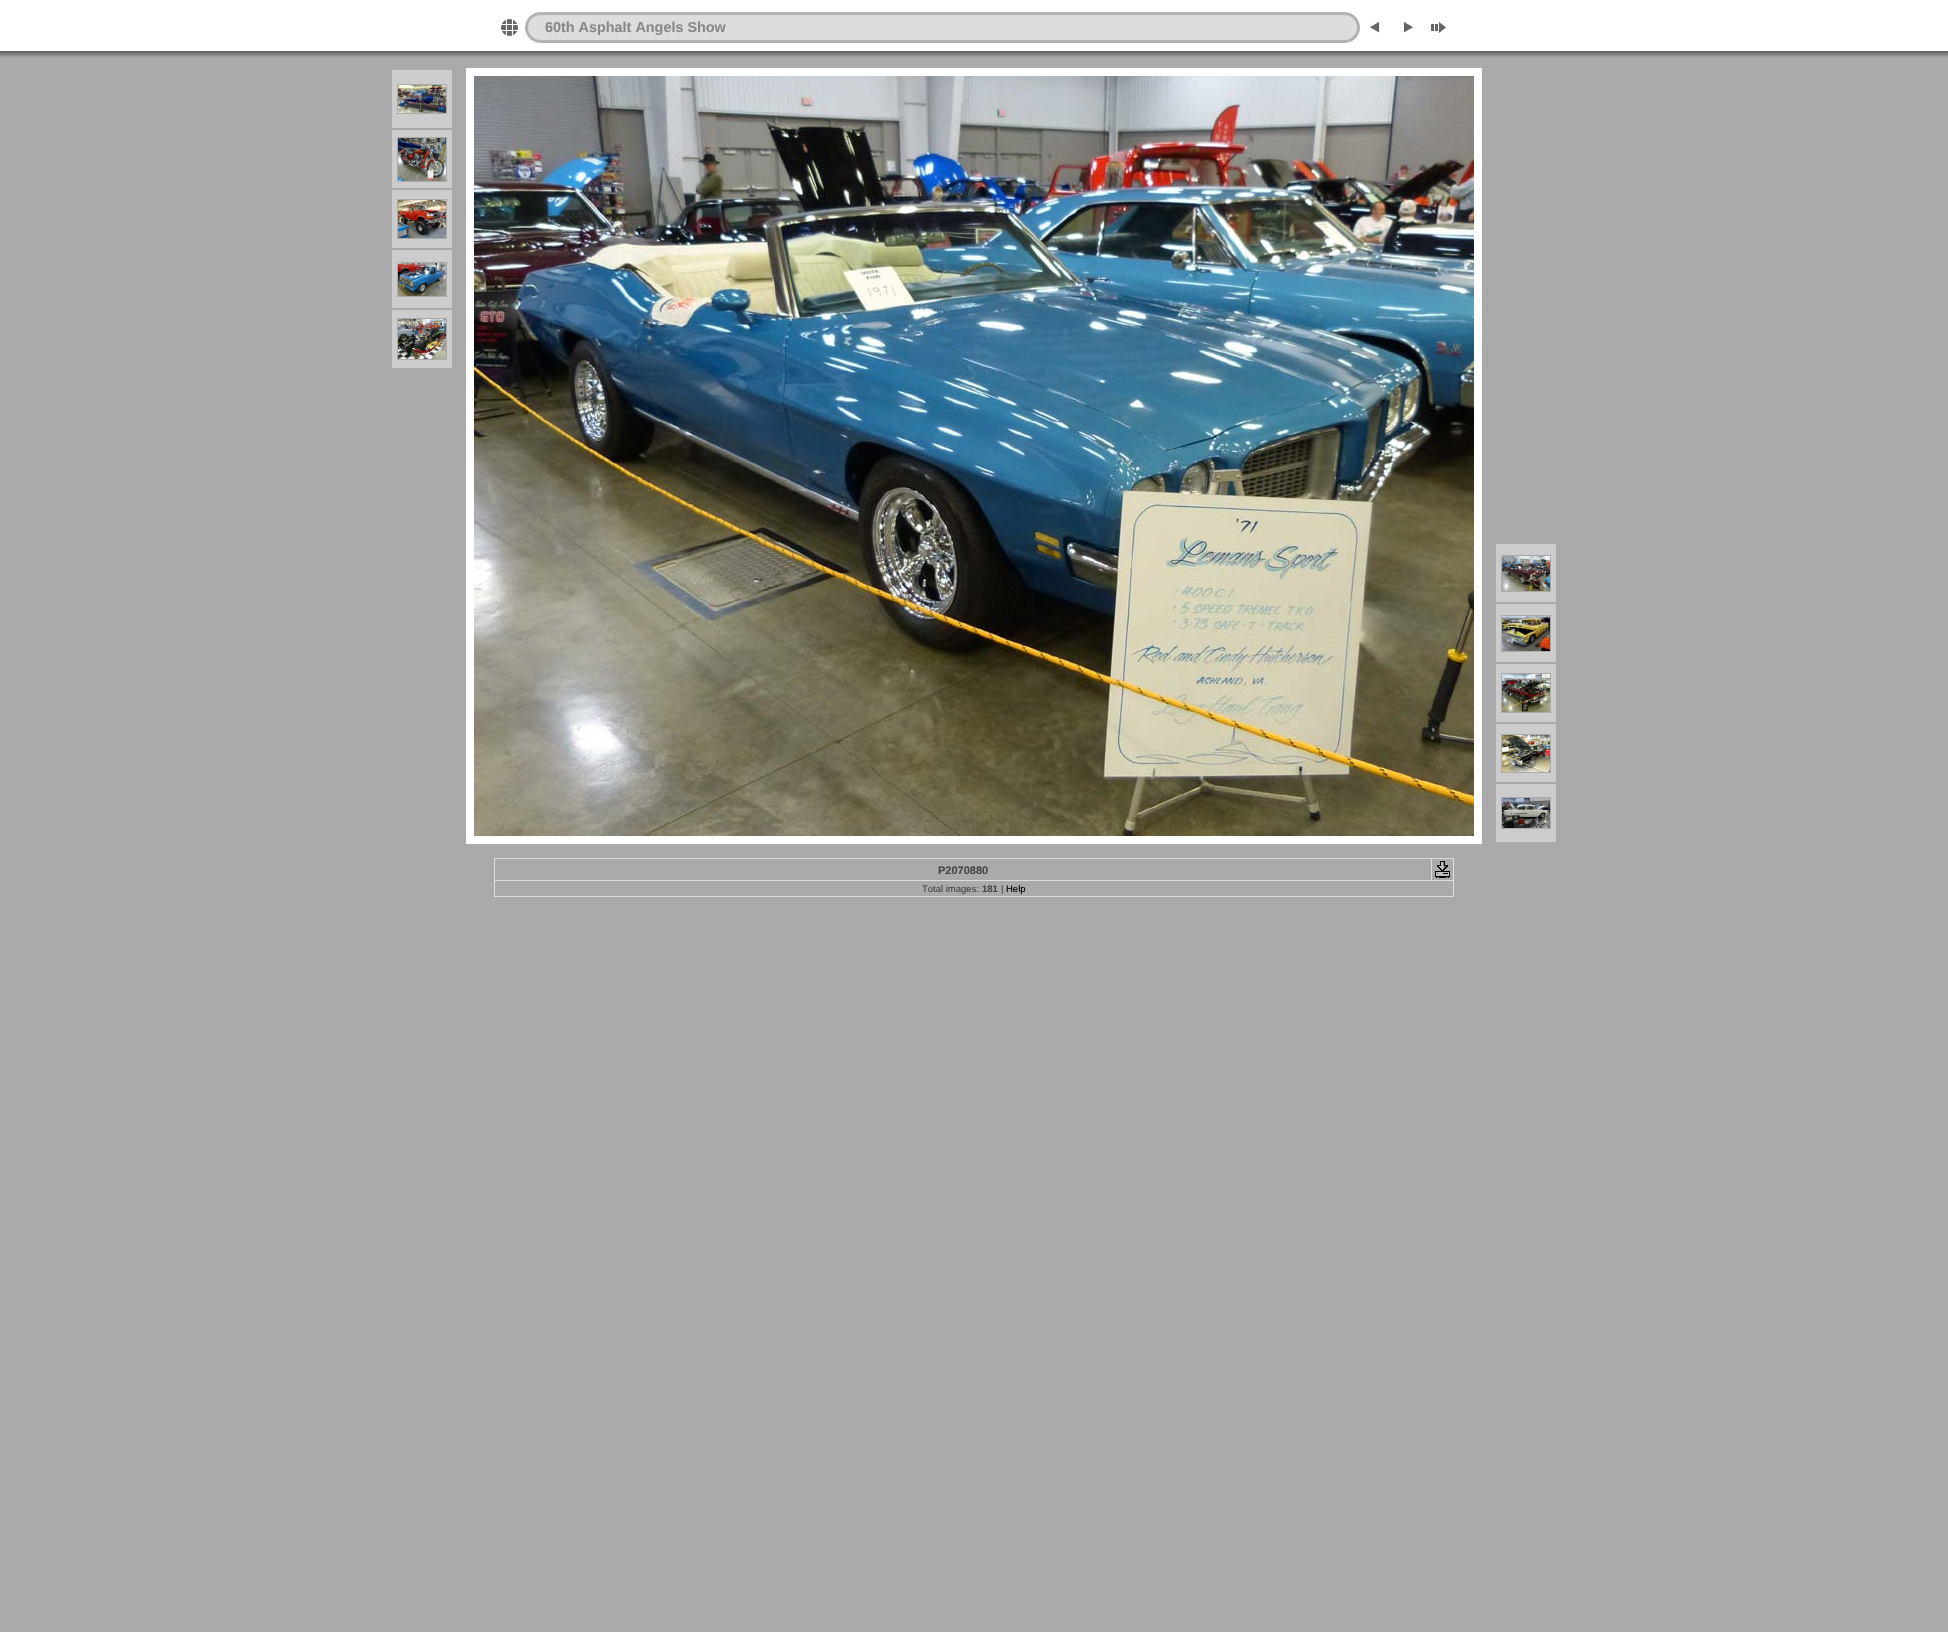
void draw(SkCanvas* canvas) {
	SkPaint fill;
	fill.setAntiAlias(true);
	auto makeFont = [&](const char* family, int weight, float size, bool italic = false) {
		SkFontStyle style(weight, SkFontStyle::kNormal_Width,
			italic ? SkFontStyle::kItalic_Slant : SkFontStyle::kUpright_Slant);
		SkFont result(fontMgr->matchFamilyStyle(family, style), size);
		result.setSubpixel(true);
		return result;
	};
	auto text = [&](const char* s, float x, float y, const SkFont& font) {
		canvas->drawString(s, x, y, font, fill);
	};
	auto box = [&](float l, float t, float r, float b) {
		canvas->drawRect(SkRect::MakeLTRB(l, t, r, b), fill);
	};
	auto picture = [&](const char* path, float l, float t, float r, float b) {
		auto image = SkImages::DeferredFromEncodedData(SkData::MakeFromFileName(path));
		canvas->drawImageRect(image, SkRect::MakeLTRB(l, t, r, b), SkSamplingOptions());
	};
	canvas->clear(0xFFAAAAAA);
	picture("image0.png", 0, 0, 1948, 58);
	picture("image1.png", 501, 19, 518, 36);
	picture("image2.png", 525, 12, 545, 43);
	picture("image3.png", 545, 12, 1341, 43);
	picture("image4.png", 1341, 12, 1360, 43);
	picture("image5.png", 1370, 22, 1380, 33);
	picture("image6.png", 1403, 22, 1413, 33);
	picture("image7.png", 1431, 22, 1446, 33);
	fill.setColor(0xFFCCCCCC);
	box(392, 70, 452, 128);
	fill.setStyle(SkPaint::kStroke_Style);
	fill.setStrokeWidth(1);
	fill.setColor(0xFFAAAAAA);
	canvas->drawRect(SkRect::MakeLTRB(397.5f, 84.5f, 446.5f, 113.5f), fill);
	picture("image8.png", 398, 85, 446, 113);
	fill.setStyle(SkPaint::kFill_Style);
	fill.setColor(0xFFCCCCCC);
	box(392, 130, 452, 188);
	fill.setStyle(SkPaint::kStroke_Style);
	fill.setColor(0xFFAAAAAA);
	canvas->drawRect(SkRect::MakeLTRB(397.5f, 137.5f, 446.5f, 181.5f), fill);
	picture("image9.png", 398, 138, 446, 181);
	fill.setStyle(SkPaint::kFill_Style);
	fill.setColor(0xFFCCCCCC);
	box(392, 190, 452, 248);
	fill.setStyle(SkPaint::kStroke_Style);
	fill.setColor(0xFFAAAAAA);
	canvas->drawRect(SkRect::MakeLTRB(397.5f, 199.5f, 446.5f, 238.5f), fill);
	picture("image10.png", 398, 200, 446, 238);
	fill.setStyle(SkPaint::kFill_Style);
	fill.setColor(0xFFCCCCCC);
	box(392, 250, 452, 308);
	fill.setStyle(SkPaint::kStroke_Style);
	fill.setColor(0xFFAAAAAA);
	canvas->drawRect(SkRect::MakeLTRB(397.5f, 262.5f, 446.5f, 296.5f), fill);
	picture("image11.png", 398, 263, 446, 296);
	fill.setStyle(SkPaint::kFill_Style);
	fill.setColor(0xFFCCCCCC);
	box(392, 310, 452, 368);
	fill.setStyle(SkPaint::kStroke_Style);
	fill.setColor(0xFFAAAAAA);
	canvas->drawRect(SkRect::MakeLTRB(397.5f, 318.5f, 446.5f, 359.5f), fill);
	picture("image12.png", 398, 319, 446, 359);
	fill.setStrokeWidth(8);
	fill.setColor(0xFFFFFFFF);
	canvas->drawRect(SkRect::MakeLTRB(470, 72, 1478, 840), fill);
	picture("image13.png", 474, 76, 1474, 836);
	fill.setStyle(SkPaint::kFill_Style);
	fill.setColor(0xFFCCCCCC);
	box(1496, 544, 1556, 602);
	fill.setStyle(SkPaint::kStroke_Style);
	fill.setStrokeWidth(1);
	fill.setColor(0xFFAAAAAA);
	canvas->drawRect(SkRect::MakeLTRB(1501.5f, 555.5f, 1550.5f, 591.5f), fill);
	picture("image14.png", 1502, 556, 1550, 591);
	fill.setStyle(SkPaint::kFill_Style);
	fill.setColor(0xFFCCCCCC);
	box(1496, 604, 1556, 662);
	fill.setStyle(SkPaint::kStroke_Style);
	fill.setColor(0xFFAAAAAA);
	canvas->drawRect(SkRect::MakeLTRB(1501.5f, 615.5f, 1550.5f, 651.5f), fill);
	picture("image15.png", 1502, 616, 1550, 651);
	fill.setStyle(SkPaint::kFill_Style);
	fill.setColor(0xFFCCCCCC);
	box(1496, 664, 1556, 722);
	fill.setStyle(SkPaint::kStroke_Style);
	fill.setColor(0xFFAAAAAA);
	canvas->drawRect(SkRect::MakeLTRB(1501.5f, 673.5f, 1550.5f, 712.5f), fill);
	picture("image16.png", 1502, 674, 1550, 712);
	fill.setStyle(SkPaint::kFill_Style);
	fill.setColor(0xFFCCCCCC);
	box(1496, 724, 1556, 782);
	fill.setStyle(SkPaint::kStroke_Style);
	fill.setColor(0xFFAAAAAA);
	canvas->drawRect(SkRect::MakeLTRB(1501.5f, 734.5f, 1550.5f, 772.5f), fill);
	picture("image17.png", 1502, 735, 1550, 772);
	fill.setStyle(SkPaint::kFill_Style);
	fill.setColor(0xFFCCCCCC);
	box(1496, 784, 1556, 842);
	fill.setStyle(SkPaint::kStroke_Style);
	fill.setColor(0xFFAAAAAA);
	canvas->drawRect(SkRect::MakeLTRB(1501.5f, 797.5f, 1550.5f, 828.5f), fill);
	picture("image18.png", 1502, 798, 1550, 828);
	fill.setStyle(SkPaint::kFill_Style);
	fill.setColor(0xFFDDDDDD);
	box(494, 858, 1454, 859);
	box(1453, 858, 1454, 897);
	box(494, 896, 1454, 897);
	box(494, 858, 495, 897);
	box(494, 880, 1454, 881);
	box(1431, 858, 1432, 881);
	picture("image19.png", 1435, 861, 1450, 878);
	auto font1 = makeFont("Liberation Sans", 700, 14.4f);
	fill.setColor(0xFF888888);
	text("60th Asphalt Angels Show", 545, 32, font1);
	auto font2 = makeFont("Liberation Sans", 700, 11);
	fill.setColor(0xFF444444);
	text("P2070880", 938, 874, font2);
	auto font3 = makeFont("Liberation Sans", 400, 9.5f);
	text("Total images:", 922, 892, font3);
	auto font4 = makeFont("Liberation Sans", 700, 9.5f);
	text("181", 982, 892, font4);
	text("|", 1001, 892, font3);
	fill.setColor(0xFF000000);
	text("Help", 1006, 892, font3);
}
